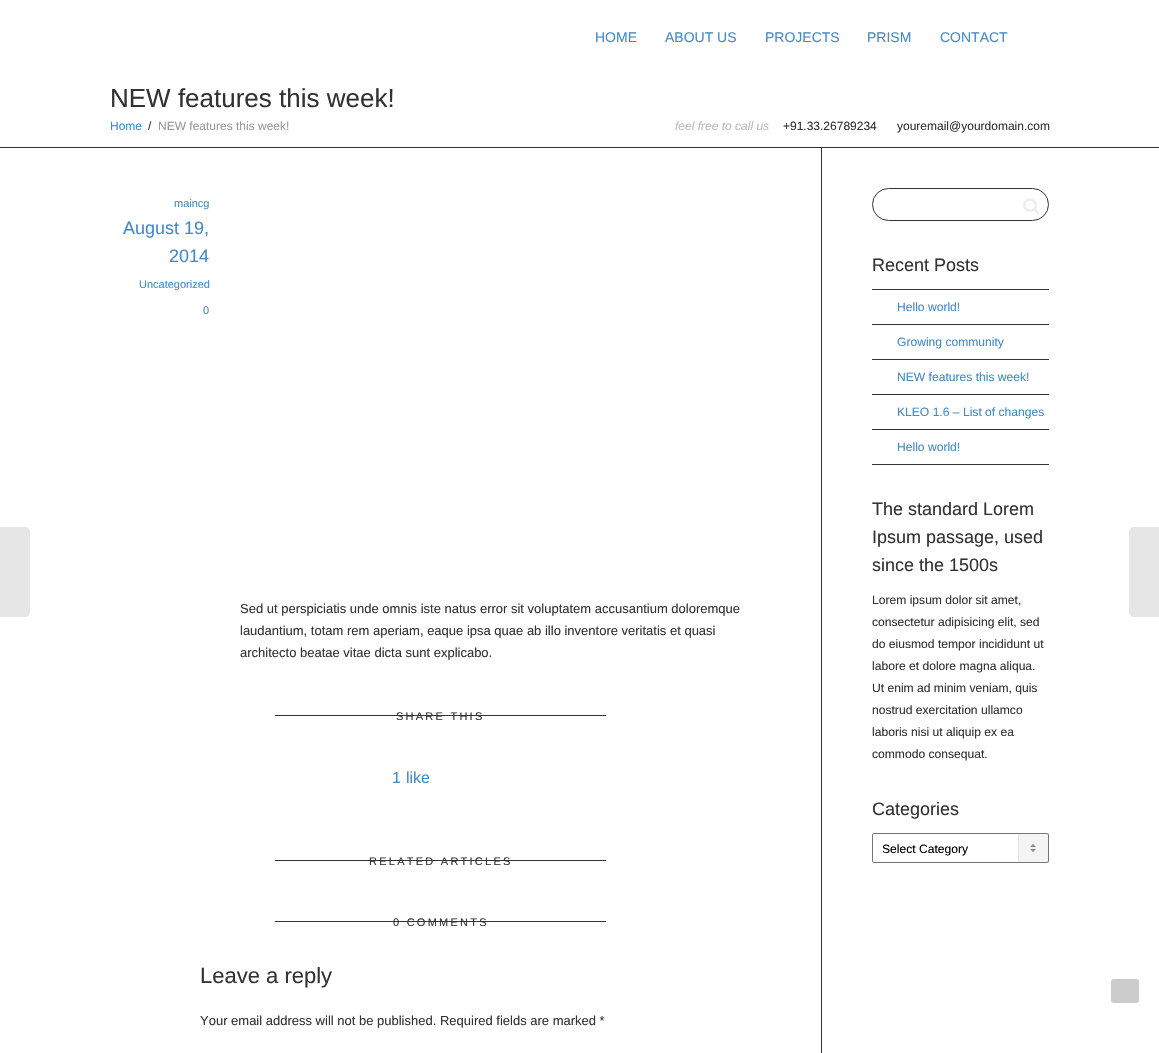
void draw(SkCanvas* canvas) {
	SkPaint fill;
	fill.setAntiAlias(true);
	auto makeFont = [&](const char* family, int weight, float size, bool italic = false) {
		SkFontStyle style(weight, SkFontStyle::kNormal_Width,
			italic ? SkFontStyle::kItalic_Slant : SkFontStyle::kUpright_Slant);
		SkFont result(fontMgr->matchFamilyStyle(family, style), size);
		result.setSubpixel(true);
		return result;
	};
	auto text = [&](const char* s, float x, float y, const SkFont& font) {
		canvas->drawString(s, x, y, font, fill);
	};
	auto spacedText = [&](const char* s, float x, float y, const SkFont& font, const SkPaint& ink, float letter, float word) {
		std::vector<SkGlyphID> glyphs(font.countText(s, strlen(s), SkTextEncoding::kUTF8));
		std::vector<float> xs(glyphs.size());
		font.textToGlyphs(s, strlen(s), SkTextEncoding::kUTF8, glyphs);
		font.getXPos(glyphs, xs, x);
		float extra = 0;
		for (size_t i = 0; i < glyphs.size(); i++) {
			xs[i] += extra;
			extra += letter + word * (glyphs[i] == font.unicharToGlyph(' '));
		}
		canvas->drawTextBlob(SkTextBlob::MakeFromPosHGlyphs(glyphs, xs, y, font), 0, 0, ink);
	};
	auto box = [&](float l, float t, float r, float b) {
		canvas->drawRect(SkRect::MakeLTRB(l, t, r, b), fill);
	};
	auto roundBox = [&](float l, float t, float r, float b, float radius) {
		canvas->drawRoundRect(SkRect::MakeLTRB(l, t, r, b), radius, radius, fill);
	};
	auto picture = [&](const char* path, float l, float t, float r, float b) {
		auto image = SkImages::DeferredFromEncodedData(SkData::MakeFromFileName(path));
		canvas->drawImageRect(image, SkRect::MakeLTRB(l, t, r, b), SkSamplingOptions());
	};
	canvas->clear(0xFFFFFFFF);
	fill.setColor(0xFF333333);
	box(0, 147, 1159, 148);
	box(821, 148, 822, 1053);
	fill.setColor(0xFFE6E6E6);
	canvas->drawPath(SkPathBuilder().moveTo(-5, 527).lineTo(25, 527).cubicTo(28, 527, 30, 529, 30, 532).lineTo(30, 612).cubicTo(30, 615, 28, 617, 25, 617).lineTo(-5, 617).close().detach(), fill);
	canvas->drawPath(SkPathBuilder().moveTo(1134, 527).lineTo(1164, 527).lineTo(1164, 617).lineTo(1134, 617).cubicTo(1131, 617, 1129, 615, 1129, 612).lineTo(1129, 532).cubicTo(1129, 529, 1131, 527, 1134, 527).close().detach(), fill);
	fill.setColor(0xFF333333);
	box(275, 715, 606, 716);
	box(275, 860, 606, 861);
	box(275, 921, 606, 922);
	fill.setStyle(SkPaint::kStroke_Style);
	fill.setStrokeWidth(1);
	canvas->drawRoundRect(SkRect::MakeLTRB(872.5f, 188.5f, 1048.5f, 220.5f), 16, 16, fill);
	picture("image0.png", 1023, 198, 1040, 215);
	fill.setStyle(SkPaint::kFill_Style);
	box(872, 289, 1049, 290);
	box(872, 324, 1049, 325);
	box(872, 359, 1049, 360);
	box(872, 394, 1049, 395);
	box(872, 429, 1049, 430);
	box(872, 464, 1049, 465);
	picture("image1.png", 1018, 833, 1048, 863);
	fill.setStyle(SkPaint::kStroke_Style);
	fill.setColor(0xFF767676);
	canvas->drawRoundRect(SkRect::MakeLTRB(872.5f, 833.5f, 1048.5f, 862.5f), 1.5f, 1.5f, fill);
	fill.setStyle(SkPaint::kFill_Style);
	fill.setColor(0xFFCCCCCC);
	roundBox(1111, 979, 1139, 1003, 3);
	auto font1 = makeFont("Liberation Sans", 400, 14);
	fill.setColor(0xFF428BCA);
	text("HOME", 595, 42, font1);
	text("ABOUT US", 665, 42, font1);
	text("PROJECTS", 765, 42, font1);
	text("PRISM", 867, 42, font1);
	text("CONTACT", 940, 42, font1);
	auto font2 = makeFont("Liberation Sans", 400, 26);
	fill.setColor(0xFF333333);
	text("NEW features this week!", 110, 107, font2);
	auto font3 = makeFont("Liberation Sans", 400, 12);
	fill.setColor(0xFF428BCA);
	text("Home", 110, 130, font3);
	fill.setColor(0xFF333333);
	text("/", 148, 130, font3);
	fill.setColor(0xFF999999);
	text("NEW features this week!", 158, 130, font3);
	auto font4 = makeFont("Liberation Sans", 400, 12, true);
	fill.setColor(0xFFBBBBBB);
	text("feel free to call us", 675, 130, font4);
	fill.setColor(0xFF333333);
	text("+91.33.26789234", 783, 130, font3);
	text("youremail@yourdomain.com", 897, 130, font3);
	auto font5 = makeFont("Liberation Sans", 400, 11);
	fill.setColor(0xFF428BCA);
	text("maincg", 174, 207, font5);
	auto font6 = makeFont("Liberation Sans", 400, 18);
	text("August 19,", 123, 234, font6);
	text("2014", 169, 262, font6);
	text("Uncategorized", 139, 288, font5);
	text("0", 203, 314, font5);
	auto font7 = makeFont("Liberation Sans", 400, 13);
	fill.setColor(0xFF333333);
	text("Sed ut perspiciatis unde omnis iste natus error sit voluptatem accusantium doloremque", 240, 613, font7);
	text("laudantium, totam rem aperiam, eaque ipsa quae ab illo inventore veritatis et quasi", 240, 635, font7);
	text("architecto beatae vitae dicta sunt explicabo.", 240, 657, font7);
	spacedText("SHARE THIS", 396, 720, font5, fill, 2.25f, 0);
	auto font8 = makeFont("Liberation Sans", 400, 16);
	fill.setColor(0xFF428BCA);
	text("1", 392, 783, font8);
	text("like", 406, 783, font8);
	fill.setColor(0xFF333333);
	spacedText("RELATED ARTICLES", 369, 865, font5, fill, 2.25f, 0);
	spacedText("0 COMMENTS", 393, 926, font5, fill, 2.25f, 0);
	auto font9 = makeFont("Liberation Sans", 400, 22);
	text("Leave a reply", 200, 983, font9);
	text("Your email address will not be published. Required fields are marked *", 200, 1025, font7);
	text("Recent Posts", 872, 271, font6);
	auto font10 = makeFont("Liberation Sans", 400, 12.1f);
	fill.setColor(0xFF428BCA);
	text("Hello world!", 897, 311, font10);
	text("Growing community", 897, 346, font10);
	text("NEW features this week!", 897, 381, font10);
	text("KLEO 1.6 – List of changes", 897, 416, font10);
	text("Hello world!", 897, 451, font10);
	fill.setColor(0xFF333333);
	text("The standard Lorem", 872, 515, font6);
	text("Ipsum passage, used", 872, 543, font6);
	text("since the 1500s", 872, 571, font6);
	text("Lorem ipsum dolor sit amet,", 872, 604, font10);
	text("consectetur adipisicing elit, sed", 872, 626, font10);
	text("do eiusmod tempor incididunt ut", 872, 648, font10);
	text("labore et dolore magna aliqua.", 872, 670, font10);
	text("Ut enim ad minim veniam, quis", 872, 692, font10);
	text("nostrud exercitation ullamco", 872, 714, font10);
	text("laboris nisi ut aliquip ex ea", 872, 736, font10);
	text("commodo consequat.", 872, 758, font10);
	text("Categories", 872, 815, font6);
	fill.setColor(0xFF000000);
	text("Select Category", 882, 853, font10);
}
